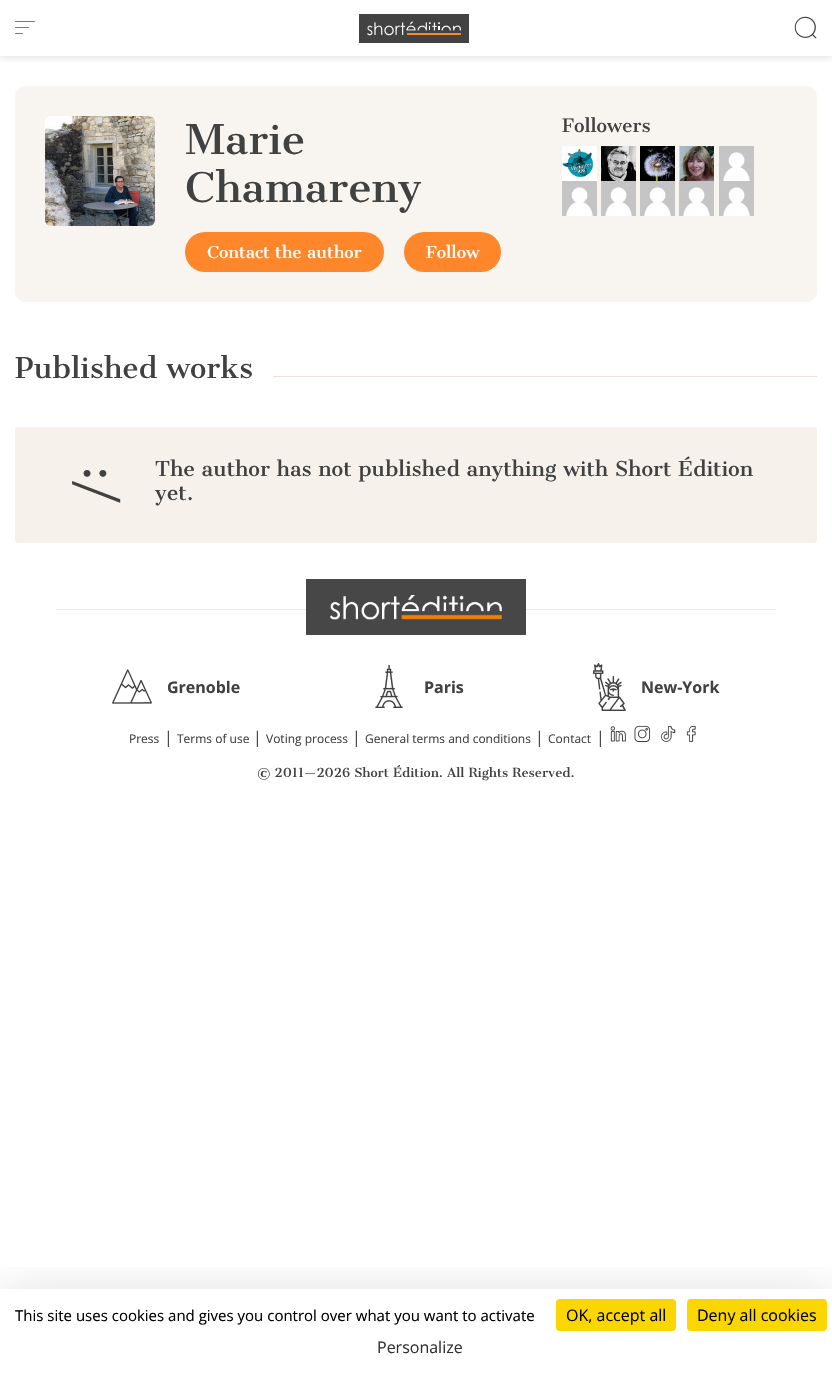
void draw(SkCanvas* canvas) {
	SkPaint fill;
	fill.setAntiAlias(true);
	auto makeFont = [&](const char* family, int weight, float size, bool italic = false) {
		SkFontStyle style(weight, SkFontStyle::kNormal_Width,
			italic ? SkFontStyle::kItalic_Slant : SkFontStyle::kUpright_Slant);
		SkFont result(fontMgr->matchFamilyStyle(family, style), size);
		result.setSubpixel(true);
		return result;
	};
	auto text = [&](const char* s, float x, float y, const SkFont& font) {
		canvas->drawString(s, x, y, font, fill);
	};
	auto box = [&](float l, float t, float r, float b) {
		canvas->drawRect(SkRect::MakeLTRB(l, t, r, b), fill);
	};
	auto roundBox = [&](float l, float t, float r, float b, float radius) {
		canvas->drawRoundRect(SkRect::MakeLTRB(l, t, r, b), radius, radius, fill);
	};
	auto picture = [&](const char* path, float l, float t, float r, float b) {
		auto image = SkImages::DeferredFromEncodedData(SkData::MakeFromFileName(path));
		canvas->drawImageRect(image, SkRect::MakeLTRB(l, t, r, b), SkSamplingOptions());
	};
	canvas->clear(0xFFFFFFFF);
	canvas->save();
	canvas->clipRect(SkRect::MakeLTRB(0, 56, 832, 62));
	fill.setColor(0x26000000);
	fill.setMaskFilter(SkMaskFilter::MakeBlur(kNormal_SkBlurStyle, 5));
	canvas->drawRect(SkRect::MakeLTRB(0, 0, 832, 56), fill);
	fill.setMaskFilter(nullptr);
	canvas->restore();
	fill.setColor(0xFF7B7B7B);
	roundBox(15, 21, 35, 22, 0.5f);
	roundBox(15, 27, 29, 28, 0.5f);
	roundBox(15, 33, 23, 34, 0.5f);
	picture("image0.png", 359, 14, 469, 43);
	picture("image1.png", 794, 16, 817, 39);
	fill.setColor(0xFFF8F4EF);
	roundBox(15, 86, 817, 302, 10);
	picture("image2.png", 45, 116, 155, 226);
	fill.setColor(0xFFFE872C);
	roundBox(185, 232, 384, 272, 20);
	roundBox(404, 232, 501, 272, 20);
	picture("image3.png", 562, 146, 597, 181);
	picture("image4.png", 601, 146, 636, 181);
	picture("image5.png", 640, 146, 675, 181);
	picture("image6.png", 679, 146, 714, 181);
	picture("image7.png", 719, 146, 754, 181);
	picture("image8.png", 562, 181, 597, 216);
	picture("image7.png", 601, 181, 636, 216);
	picture("image7.png", 640, 181, 675, 216);
	picture("image7.png", 679, 181, 714, 216);
	picture("image7.png", 719, 181, 754, 216);
	fill.setColor(0xFFECE2D9);
	box(273, 376, 817, 377);
	fill.setColor(0xFFF6F1EB);
	roundBox(15, 427, 817, 543, 4);
	fill.setColor(0xFFF1E9E0);
	box(56, 609, 776, 610);
	fill.setColor(0xFF474747);
	box(306, 579, 526, 635);
	picture("image9.png", 330, 595, 502, 620);
	picture("image10.png", 112, 669, 152, 704);
	picture("image11.png", 375, 665, 403, 708);
	picture("image12.png", 593, 663, 626, 711);
	picture("image13.png", 610, 726, 626, 742);
	picture("image14.png", 634, 725, 651, 743);
	picture("image15.png", 661, 725, 676, 742);
	picture("image16.png", 686, 725, 696, 742);
	canvas->save();
	canvas->clipRect(SkRect::MakeLTRB(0, 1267, 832, 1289));
	fill.setColor(0x40000000);
	fill.setMaskFilter(SkMaskFilter::MakeBlur(kNormal_SkBlurStyle, 30));
	canvas->drawRect(SkRect::MakeLTRB(0, 1309, 832, 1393), fill);
	fill.setMaskFilter(nullptr);
	canvas->restore();
	fill.setColor(0xFFFBD600);
	roundBox(556, 1299, 676, 1331, 4);
	roundBox(687, 1299, 827, 1331, 4);
	auto font1 = makeFont("Cantata One", 400, 40);
	fill.setColor(0xFF404141);
	text("Marie", 185, 154, font1);
	text("Chamareny", 185, 202, font1);
	auto font2 = makeFont("Cantata One", 400, 16);
	fill.setColor(0xFFFFFFFF);
	text("Contact the author", 207, 258, font2);
	text("Follow", 426, 258, font2);
	auto font3 = makeFont("Cantata One", 400, 18);
	fill.setColor(0xFF404141);
	text("Followers", 562, 132, font3);
	auto font4 = makeFont("Cantata One", 400, 28);
	text("Published works", 15, 378, font4);
	auto font5 = makeFont("Cantata One", 400, 44);
	canvas->save();
	canvas->rotate(90, 84, 466);
	text(":/", 84, 466, font5);
	canvas->restore();
	auto font6 = makeFont("Cantata One", 400, 20);
	text("The author has not published anything with Short Édition", 155, 476, font6);
	text("yet.", 155, 500, font6);
	auto font7 = makeFont("Open Sans", 700, 16);
	text("Grenoble", 167, 693, font7);
	text("Paris", 424, 693, font7);
	text("New-York", 641, 693, font7);
	auto font8 = makeFont("Open Sans", 400, 12);
	text("Press", 129, 743, font8);
	auto font9 = makeFont("Open Sans", 400, 16);
	text("|", 164, 743, font9);
	text("Terms of use", 177, 743, font8);
	text("|", 253, 743, font9);
	text("Voting process", 266, 743, font8);
	text("|", 352, 743, font9);
	text("General terms and conditions", 365, 743, font8);
	text("|", 535, 743, font9);
	text("Contact", 548, 743, font8);
	text("|", 596, 743, font9);
	auto font10 = makeFont("Cantata One", 400, 12.25f);
	text("© 2011—2026 Short Édition. All Rights Reserved.", 257, 777, font10);
	auto font11 = makeFont("Open Sans", 400, 15);
	fill.setColor(0xFF000000);
	text("This site uses cookies and gives you control over what you want to activate", 15, 1321, font11);
	text("OK, accept all", 566, 1321, font9);
	text("Deny all cookies", 697, 1321, font9);
	fill.setColor(0xFF333333);
	text("Personalize", 377, 1353, font9);
}
